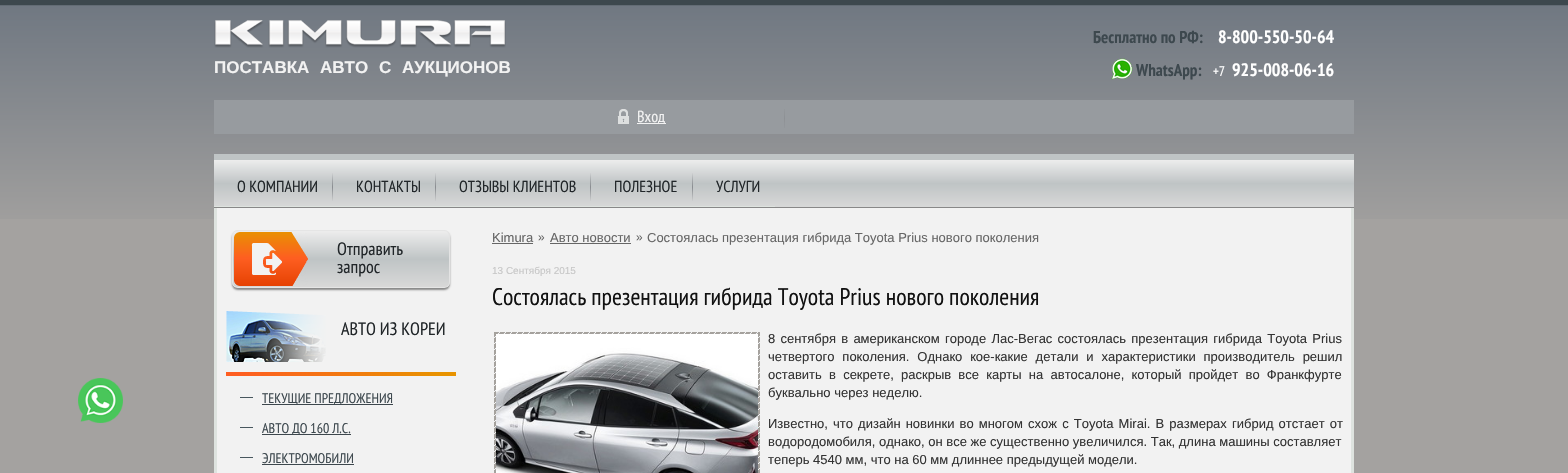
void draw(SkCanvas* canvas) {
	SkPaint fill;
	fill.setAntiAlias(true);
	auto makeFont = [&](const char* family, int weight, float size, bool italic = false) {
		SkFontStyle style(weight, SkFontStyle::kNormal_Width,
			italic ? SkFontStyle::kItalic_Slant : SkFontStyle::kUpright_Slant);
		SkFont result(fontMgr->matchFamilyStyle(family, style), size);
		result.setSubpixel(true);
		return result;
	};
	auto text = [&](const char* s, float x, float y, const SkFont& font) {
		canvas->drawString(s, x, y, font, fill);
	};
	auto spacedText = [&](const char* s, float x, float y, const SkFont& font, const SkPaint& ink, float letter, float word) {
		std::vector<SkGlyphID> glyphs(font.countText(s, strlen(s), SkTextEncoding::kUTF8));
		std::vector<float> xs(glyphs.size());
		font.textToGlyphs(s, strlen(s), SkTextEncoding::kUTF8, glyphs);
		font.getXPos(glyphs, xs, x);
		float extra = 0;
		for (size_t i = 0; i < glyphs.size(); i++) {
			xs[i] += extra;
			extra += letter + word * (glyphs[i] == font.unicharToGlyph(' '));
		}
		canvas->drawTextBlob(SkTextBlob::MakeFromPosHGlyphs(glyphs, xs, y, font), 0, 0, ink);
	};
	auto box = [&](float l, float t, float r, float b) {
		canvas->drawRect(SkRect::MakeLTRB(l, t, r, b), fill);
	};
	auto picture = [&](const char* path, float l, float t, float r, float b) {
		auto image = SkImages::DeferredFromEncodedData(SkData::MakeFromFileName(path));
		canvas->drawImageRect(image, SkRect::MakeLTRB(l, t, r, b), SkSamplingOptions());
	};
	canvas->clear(0xFFA4A2A0);
	picture("image0.png", 0, 0, 1568, 219);
	picture("image1.png", 78, 378, 123, 423);
	picture("image2.png", 214, 20, 506, 48);
	picture("image3.png", 1111, 58, 1133, 80);
	fill.setColor(0xFF979B9F);
	box(214, 100, 1354, 134);
	picture("image4.png", 617, 109, 629, 124);
	fill.setColor(0xFFF2F2F2);
	box(637, 123, 666, 124);
	picture("image5.png", 784, 109, 785, 128);
	{
		const SkColor colors[] = {0xFFEDEDED, 0xFFBFC4C5, 0xFFD8D8D8};
		const float stops[] = {0, 0.5f, 1};
		const SkPoint ends[] = {{784, 160}, {784, 207}};
		fill.setShader(SkGradientShader::MakeLinear(ends, colors, stops, 3, SkTileMode::kClamp));
		fill.setAlpha(255);
	}
	box(214, 160, 1354, 207);
	fill.setShader(nullptr);
	fill.setColor(0xFFBFC4C5);
	box(214, 154, 1354, 160);
	fill.setColor(0xFF888888);
	box(214, 207, 1354, 208);
	picture("image6.png", 332, 173, 333, 201);
	fill.setColor(0xFFDEE3DF);
	box(214, 206, 775, 207);
	picture("image6.png", 435, 173, 436, 201);
	picture("image6.png", 590, 173, 591, 201);
	picture("image6.png", 692, 173, 693, 201);
	fill.setColor(0xFFF2F2F2);
	box(217, 208, 1351, 473);
	picture("image7.png", 226, 372, 456, 376);
	picture("image8.png", 226, 311, 326, 362);
	fill.setColor(0xFF48575E);
	box(240, 397, 253, 398);
	fill.setColor(0xFF3D474D);
	box(262, 404, 393, 405);
	fill.setColor(0xFF48575E);
	box(240, 427, 253, 428);
	fill.setColor(0xFF3D474D);
	box(262, 434, 351, 435);
	fill.setColor(0xFF48575E);
	box(240, 457, 253, 458);
	fill.setColor(0xFF3D474D);
	box(262, 464, 354, 465);
	fill.setColor(0xFFDEE3DF);
	box(1351, 208, 1354, 473);
	box(214, 208, 217, 473);
	fill.setColor(0xFF878787);
	fill.setMaskFilter(SkMaskFilter::MakeBlur(kNormal_SkBlurStyle, 1));
	canvas->drawRoundRect(SkRect::MakeLTRB(232, 232, 450, 290), 6, 6, fill);
	fill.setMaskFilter(nullptr);
	canvas->save();
	canvas->clipPath(SkPathBuilder().moveTo(238, 230).lineTo(444, 230).cubicTo(447.5f, 230, 450, 232.5f, 450, 236).lineTo(450, 282).cubicTo(450, 285.5f, 447.5f, 288, 444, 288).lineTo(238, 288).cubicTo(234.5f, 288, 232, 285.5f, 232, 282).lineTo(232, 236).cubicTo(232, 232.5f, 234.5f, 230, 238, 230).close().detach(), true);
	{
		const SkColor colors[] = {0xFFEDEDED, 0xFFBFC4C5, 0xFFD8D8D8};
		const float stops[] = {0, 0.5f, 1};
		const SkPoint ends[] = {{341, 231}, {341, 287}};
		fill.setShader(SkGradientShader::MakeLinear(ends, colors, stops, 3, SkTileMode::kClamp));
		fill.setAlpha(255);
	}
	box(232, 231, 450, 287);
	canvas->restore();
	fill.setStyle(SkPaint::kStroke_Style);
	fill.setStrokeWidth(1);
	fill.setShader(nullptr);
	fill.setColor(0xFFE3E3E3);
	canvas->drawPath(SkPathBuilder().moveTo(448, 232).cubicTo(449, 233, 449.5f, 234.5f, 449.5f, 236).lineTo(449.5f, 282).cubicTo(449.5f, 283.5f, 449, 285, 448, 286).detach(), fill);
	fill.setColor(0xFFE5E5E5);
	canvas->drawPath(SkPathBuilder().moveTo(448, 286).cubicTo(447, 287, 445.5f, 287.5f, 444, 287.5f).lineTo(238, 287.5f).cubicTo(236.5f, 287.5f, 235, 287, 234, 286).cubicTo(233, 285, 232.5f, 283.5f, 232.5f, 282).lineTo(232.5f, 236).cubicTo(232.5f, 234.5f, 233, 233, 234, 232).cubicTo(235, 231, 236.5f, 230.5f, 238, 230.5f).lineTo(444, 230.5f).cubicTo(445.5f, 230.5f, 447, 231, 448, 232).detach(), fill);
	picture("image9.png", 234, 232, 308, 286);
	fill.setStyle(SkPaint::kFill_Style);
	fill.setColor(0xFF666666);
	box(492, 243, 533, 244);
	box(550, 243, 631, 244);
	fill.setColor(0xFFA4A2A0);
	box(494, 332, 760, 473);
	picture("image10.png", 494, 332, 760, 473);
	auto font1 = makeFont("Liberation Sans", 700, 17);
	fill.setColor(0xFFF2F2F2);
	spacedText("ПОСТАВКА АВТО С АУКЦИОНОВ", 214, 73, font1, fill, 0, 6);
	auto font2 = makeFont("PT Sans Narrow", 700, 17);
	fill.setColor(0xFF3D484E);
	text("Бесплатно по РФ:", 1093, 43, font2);
	auto font3 = makeFont("PT Sans Narrow", 700, 18);
	fill.setColor(0xFFFFFFFF);
	text("8-800-550-50-64", 1218, 43, font3);
	fill.setColor(0xFF3D484E);
	text("WhatsApp:", 1136, 76, font2);
	auto font4 = makeFont("PT Sans Narrow", 400, 14);
	fill.setColor(0xFFFFFFFF);
	text("+7", 1213, 76, font4);
	text("925-008-06-16", 1232, 76, font3);
	auto font5 = makeFont("PT Sans Narrow", 400, 16);
	fill.setColor(0xFFF2F2F2);
	text("Вход", 637, 122, font5);
	fill.setColor(0xFF212629);
	text("О КОМПАНИИ", 237, 192, font5);
	text("КОНТАКТЫ", 356, 192, font5);
	text("ОТЗЫВЫ КЛИЕНТОВ", 459, 192, font5);
	text("ПОЛЕЗНОЕ", 614, 192, font5);
	text("УСЛУГИ", 716, 192, font5);
	auto font6 = makeFont("PT Sans Narrow", 400, 18);
	text("АВТО ИЗ КОРЕИ", 341, 335, font6);
	fill.setColor(0xFF3D484E);
	text("ТЕКУЩИЕ ПРЕДЛОЖЕНИЯ", 262, 403, font4);
	text("АВТО ДО 160 Л.С.", 262, 433, font4);
	text("ЭЛЕКТРОМОБИЛИ", 262, 463, font4);
	fill.setColor(0xFF212629);
	text("Отправить", 337, 255, font6);
	text("запрос", 337, 273, font6);
	auto font7 = makeFont("Liberation Sans", 400, 13);
	fill.setColor(0xFF666666);
	text("Kimura", 492, 242, font7);
	auto font8 = makeFont("Liberation Sans", 400, 12);
	text("»", 538, 241, font8);
	text("Авто новости", 550, 242, font7);
	text("»", 636, 241, font8);
	text("Состоялась презентация гибрида Toyota Prius нового поколения", 647, 242, font7);
	auto font9 = makeFont("Liberation Sans", 400, 10);
	fill.setColor(0xFFC7C7C7);
	text("13 Сентября 2015", 492, 274, font9);
	auto font10 = makeFont("PT Sans Narrow", 400, 24);
	fill.setColor(0xFF111111);
	text("Состоялась презентация гибрида Toyota Prius нового поколения", 492, 305, font10);
	fill.setColor(0xFF333333);
	spacedText("8 сентября в американском городе Лас-Вегас состоялась презентация гибрида Toyota Prius", 768, 343, font7, fill, 0, 1.6f);
	spacedText("четвертого поколения. Однако кое-какие детали и характеристики производитель решил", 768, 361, font7, fill, 0, 4.25f);
	spacedText("оставить в секрете, раскрыв все карты на автосалоне, который пройдет во Франкфурте", 768, 379, font7, fill, 0, 3.6f);
	text("буквально через неделю.", 768, 397, font7);
	spacedText("Известно, что дизайн новинки во многом схож с Toyota Mirai. В размерах гибрид отстает от", 768, 428, font7, fill, 0, 1.5f);
	text("водородомобиля, однако, он все же существенно увеличился. Так, длина машины составляет", 768, 446, font7);
	text("теперь 4540 мм, что на 60 мм длиннее предыдущей модели.", 768, 464, font7);
}
